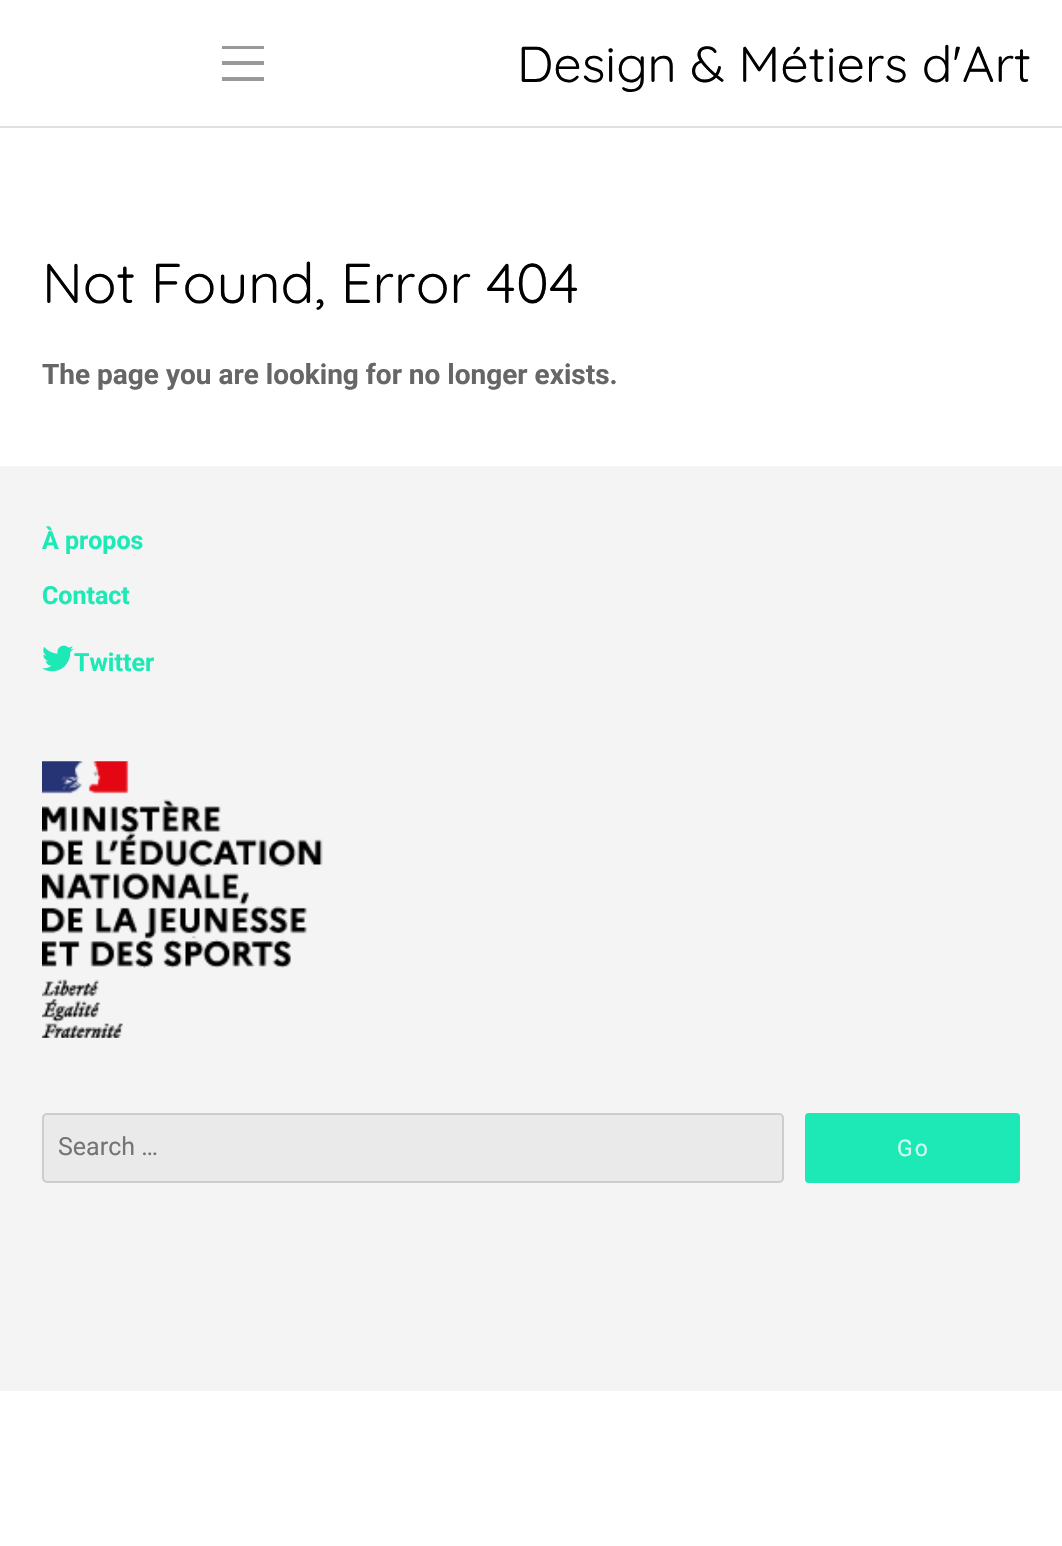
void draw(SkCanvas* canvas) {
	SkPaint fill;
	fill.setAntiAlias(true);
	auto makeFont = [&](const char* family, int weight, float size, bool italic = false) {
		SkFontStyle style(weight, SkFontStyle::kNormal_Width,
			italic ? SkFontStyle::kItalic_Slant : SkFontStyle::kUpright_Slant);
		SkFont result(fontMgr->matchFamilyStyle(family, style), size);
		result.setSubpixel(true);
		return result;
	};
	auto text = [&](const char* s, float x, float y, const SkFont& font) {
		canvas->drawString(s, x, y, font, fill);
	};
	auto spacedText = [&](const char* s, float x, float y, const SkFont& font, const SkPaint& ink, float letter, float word) {
		std::vector<SkGlyphID> glyphs(font.countText(s, strlen(s), SkTextEncoding::kUTF8));
		std::vector<float> xs(glyphs.size());
		font.textToGlyphs(s, strlen(s), SkTextEncoding::kUTF8, glyphs);
		font.getXPos(glyphs, xs, x);
		float extra = 0;
		for (size_t i = 0; i < glyphs.size(); i++) {
			xs[i] += extra;
			extra += letter + word * (glyphs[i] == font.unicharToGlyph(' '));
		}
		canvas->drawTextBlob(SkTextBlob::MakeFromPosHGlyphs(glyphs, xs, y, font), 0, 0, ink);
	};
	auto box = [&](float l, float t, float r, float b) {
		canvas->drawRect(SkRect::MakeLTRB(l, t, r, b), fill);
	};
	auto roundBox = [&](float l, float t, float r, float b, float radius) {
		canvas->drawRoundRect(SkRect::MakeLTRB(l, t, r, b), radius, radius, fill);
	};
	auto picture = [&](const char* path, float l, float t, float r, float b) {
		auto image = SkImages::DeferredFromEncodedData(SkData::MakeFromFileName(path));
		canvas->drawImageRect(image, SkRect::MakeLTRB(l, t, r, b), SkSamplingOptions());
	};
	canvas->clear(0xFFFFFFFF);
	fill.setColor(0xFFE0E0E0);
	box(0, 126, 1062, 128);
	fill.setColor(0xFF999999);
	box(222, 46, 264, 49);
	box(222, 61, 264, 65);
	box(222, 77, 264, 81);
	fill.setColor(0xFFF4F4F4);
	box(0, 466, 1062, 1391);
	picture("image0.png", 42, 645, 74, 672);
	picture("image1.png", 42, 761, 323, 1038);
	fill.setColor(0xFFEAEAEA);
	roundBox(42, 1113, 784, 1183, 5);
	fill.setStyle(SkPaint::kStroke_Style);
	fill.setStrokeWidth(2);
	fill.setColor(0x1F000000);
	canvas->drawRoundRect(SkRect::MakeLTRB(43, 1114, 783, 1182), 4, 4, fill);
	fill.setStyle(SkPaint::kFill_Style);
	fill.setColor(0xFF1DE9B6);
	roundBox(805, 1113, 1020, 1183, 4);
	auto font1 = makeFont("Quicksand", 400, 50.4f);
	fill.setColor(0xFF000000);
	text("Design & Métiers d'Art", 517, 82, font1);
	auto font2 = makeFont("Quicksand", 400, 56);
	text("Not Found, Error 404", 42, 303, font2);
	auto font3 = makeFont("Roboto", 700, 28);
	fill.setColor(0xFF666666);
	text("The page you are looking for no longer exists.", 42, 384, font3);
	auto font4 = makeFont("Roboto", 700, 25);
	fill.setColor(0xFF1DE9B6);
	text("À propos", 42, 549, font4);
	text("Contact", 42, 604, font4);
	text("Twitter", 74, 671, font4);
	auto font5 = makeFont("Roboto", 400, 25);
	fill.setColor(0xFF757575);
	text("Search …", 58, 1155, font5);
	auto font6 = makeFont("Roboto", 400, 23);
	fill.setColor(0xFFD2FBF0);
	spacedText("Go", 897, 1156, font6, fill, 2, 0);
}
